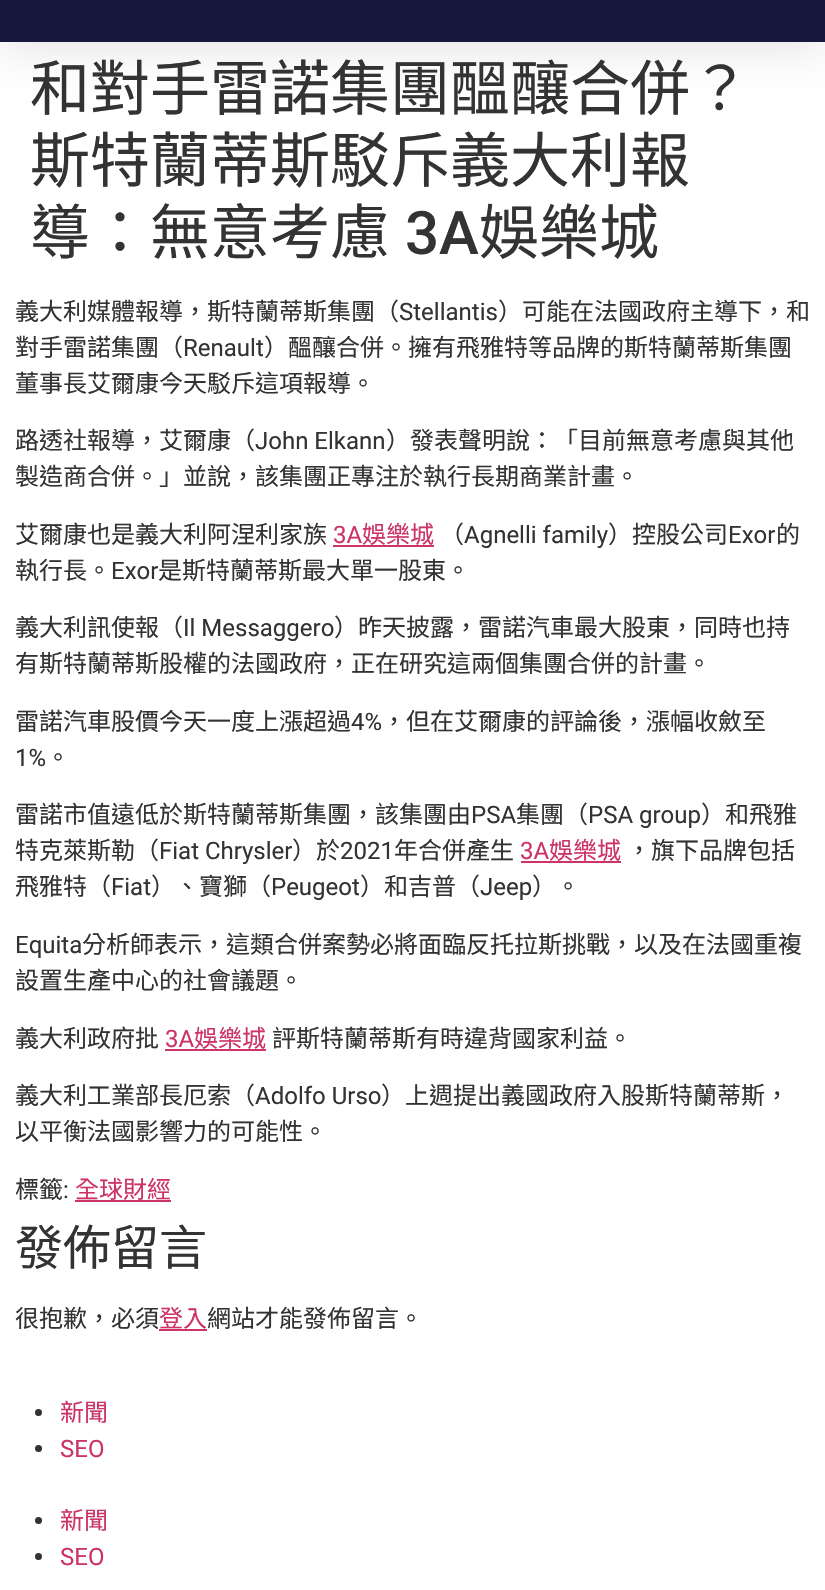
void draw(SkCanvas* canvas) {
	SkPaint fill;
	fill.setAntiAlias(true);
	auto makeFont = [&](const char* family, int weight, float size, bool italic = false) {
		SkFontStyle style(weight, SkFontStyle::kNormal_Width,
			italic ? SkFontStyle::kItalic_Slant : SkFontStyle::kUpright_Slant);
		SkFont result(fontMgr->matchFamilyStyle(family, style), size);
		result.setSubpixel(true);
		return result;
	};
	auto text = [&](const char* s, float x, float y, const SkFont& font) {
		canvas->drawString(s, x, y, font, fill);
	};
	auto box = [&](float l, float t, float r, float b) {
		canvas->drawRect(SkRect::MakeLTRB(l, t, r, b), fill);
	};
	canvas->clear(0xFFFFFFFF);
	fill.setColor(0x1A000000);
	fill.setMaskFilter(SkMaskFilter::MakeBlur(kNormal_SkBlurStyle, 22.5f));
	canvas->drawRect(SkRect::MakeLTRB(0, -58, 825, 50), fill);
	fill.setMaskFilter(nullptr);
	fill.setColor(0xFF16163F);
	box(0, 0, 825, 42);
	fill.setColor(0xFFCC3366);
	box(333, 545, 434, 547);
	box(521, 861, 621, 863);
	box(165, 1049, 266, 1051);
	box(75, 1200, 171, 1202);
	box(159, 1329, 207, 1331);
	fill.setColor(0xFF333333);
	canvas->drawCircle(38.5f, 1412.5f, 3.5f, fill);
	canvas->drawCircle(38.5f, 1448.5f, 3.5f, fill);
	canvas->drawCircle(38.5f, 1520.5f, 3.5f, fill);
	canvas->drawCircle(38.5f, 1556.5f, 3.5f, fill);
	auto font1 = makeFont("Noto Sans CJK TC", 400, 60);
	text("和對手雷諾集團醞釀合併？", 30, 110, font1);
	text("斯特蘭蒂斯駁斥義大利報", 30, 182, font1);
	text("導：無意考慮", 30, 254, font1);
	auto font2 = makeFont("Roboto", 500, 60);
	text("3A", 405, 254, font2);
	text("娛樂城", 479, 254, font1);
	auto font3 = makeFont("Noto Sans CJK TC", 400, 24);
	text("義大利媒體報導，斯特蘭蒂斯集團（", 15, 320, font3);
	auto font4 = makeFont("Roboto", 400, 24);
	text("Stellantis", 399, 320, font4);
	text("）可能在法國政府主導下，和", 498, 320, font3);
	text("對手雷諾集團（", 15, 356, font3);
	text("Renault", 183, 356, font4);
	text("）醞釀合併。擁有飛雅特等品牌的斯特蘭蒂斯集團", 264, 356, font3);
	text("董事長艾爾康今天駁斥這項報導。", 15, 392, font3);
	text("路透社報導，艾爾康（", 15, 449, font3);
	text("John Elkann", 255, 449, font4);
	text("）發表聲明說：「目前無意考慮與其他", 386, 449, font3);
	text("製造商合併。」並說，該集團正專注於執行長期商業計畫。", 15, 485, font3);
	text("艾爾康也是義大利阿涅利家族", 15, 543, font3);
	fill.setColor(0xFFCC3366);
	text("3A", 333, 543, font4);
	text("娛樂城", 362, 543, font3);
	fill.setColor(0xFF333333);
	text("（", 440, 543, font3);
	text("Agnelli family", 464, 543, font4);
	text("）控股公司", 608, 543, font3);
	text("Exor", 728, 543, font4);
	text("的", 776, 543, font3);
	text("執行長。", 15, 579, font3);
	text("Exor", 111, 579, font4);
	text("是斯特蘭蒂斯最大單一股東。", 158, 579, font3);
	text("義大利訊使報（", 15, 636, font3);
	text("Il Messaggero", 183, 636, font4);
	text("）昨天披露，雷諾汽車最大股東，同時也持", 334, 636, font3);
	text("有斯特蘭蒂斯股權的法國政府，正在研究這兩個集團合併的計畫。", 15, 672, font3);
	text("雷諾汽車股價今天一度上漲超過", 15, 730, font3);
	text("4%", 351, 730, font4);
	text("，但在艾爾康的評論後，漲幅收斂至", 382, 730, font3);
	text("1%", 15, 766, font4);
	text("。", 46, 766, font3);
	text("雷諾市值遠低於斯特蘭蒂斯集團，該集團由", 15, 823, font3);
	text("PSA", 471, 823, font4);
	text("集團（", 516, 823, font3);
	text("PSA group", 588, 823, font4);
	text("）和飛雅", 701, 823, font3);
	text("特克萊斯勒（", 15, 859, font3);
	text("Fiat Chrysler", 159, 859, font4);
	text("）於", 292, 859, font3);
	text("2021", 340, 859, font4);
	text("年合併產生", 394, 859, font3);
	fill.setColor(0xFFCC3366);
	text("3A", 520, 859, font4);
	text("娛樂城", 549, 859, font3);
	fill.setColor(0xFF333333);
	text("，旗下品牌包括", 627, 859, font3);
	text("飛雅特（", 15, 895, font3);
	text("Fiat", 111, 895, font4);
	text("）、寶獅（", 151, 895, font3);
	text("Peugeot", 271, 895, font4);
	text("）和吉普（", 360, 895, font3);
	text("Jeep", 480, 895, font4);
	text("）。", 532, 895, font3);
	text("Equita", 15, 953, font4);
	text("分析師表示，這類合併案勢必將面臨反托拉斯挑戰，以及在法國重複", 82, 953, font3);
	text("設置生產中心的社會議題。", 15, 989, font3);
	text("義大利政府批", 15, 1047, font3);
	fill.setColor(0xFFCC3366);
	text("3A", 165, 1047, font4);
	text("娛樂城", 194, 1047, font3);
	fill.setColor(0xFF333333);
	text("評斯特蘭蒂斯有時違背國家利益。", 272, 1047, font3);
	text("義大利工業部長厄索（", 15, 1104, font3);
	text("Adolfo Urso", 255, 1104, font4);
	text("）上週提出義國政府入股斯特蘭蒂斯，", 381, 1104, font3);
	text("以平衡法國影響力的可能性。", 15, 1140, font3);
	text("標籤", 15, 1198, font3);
	text(":", 63, 1198, font4);
	fill.setColor(0xFFCC3366);
	text("全球財經", 75, 1198, font3);
	auto font5 = makeFont("Noto Sans CJK TC", 400, 48);
	fill.setColor(0xFF333333);
	text("發佈留言", 15, 1265, font5);
	text("很抱歉，必須", 15, 1327, font3);
	fill.setColor(0xFFCC3366);
	text("登入", 159, 1327, font3);
	fill.setColor(0xFF333333);
	text("網站才能發佈留言。", 207, 1327, font3);
	fill.setColor(0xFFCC3366);
	text("新聞", 60, 1421, font3);
	text("SEO", 60, 1457, font4);
	text("新聞", 60, 1529, font3);
	text("SEO", 60, 1565, font4);
}
